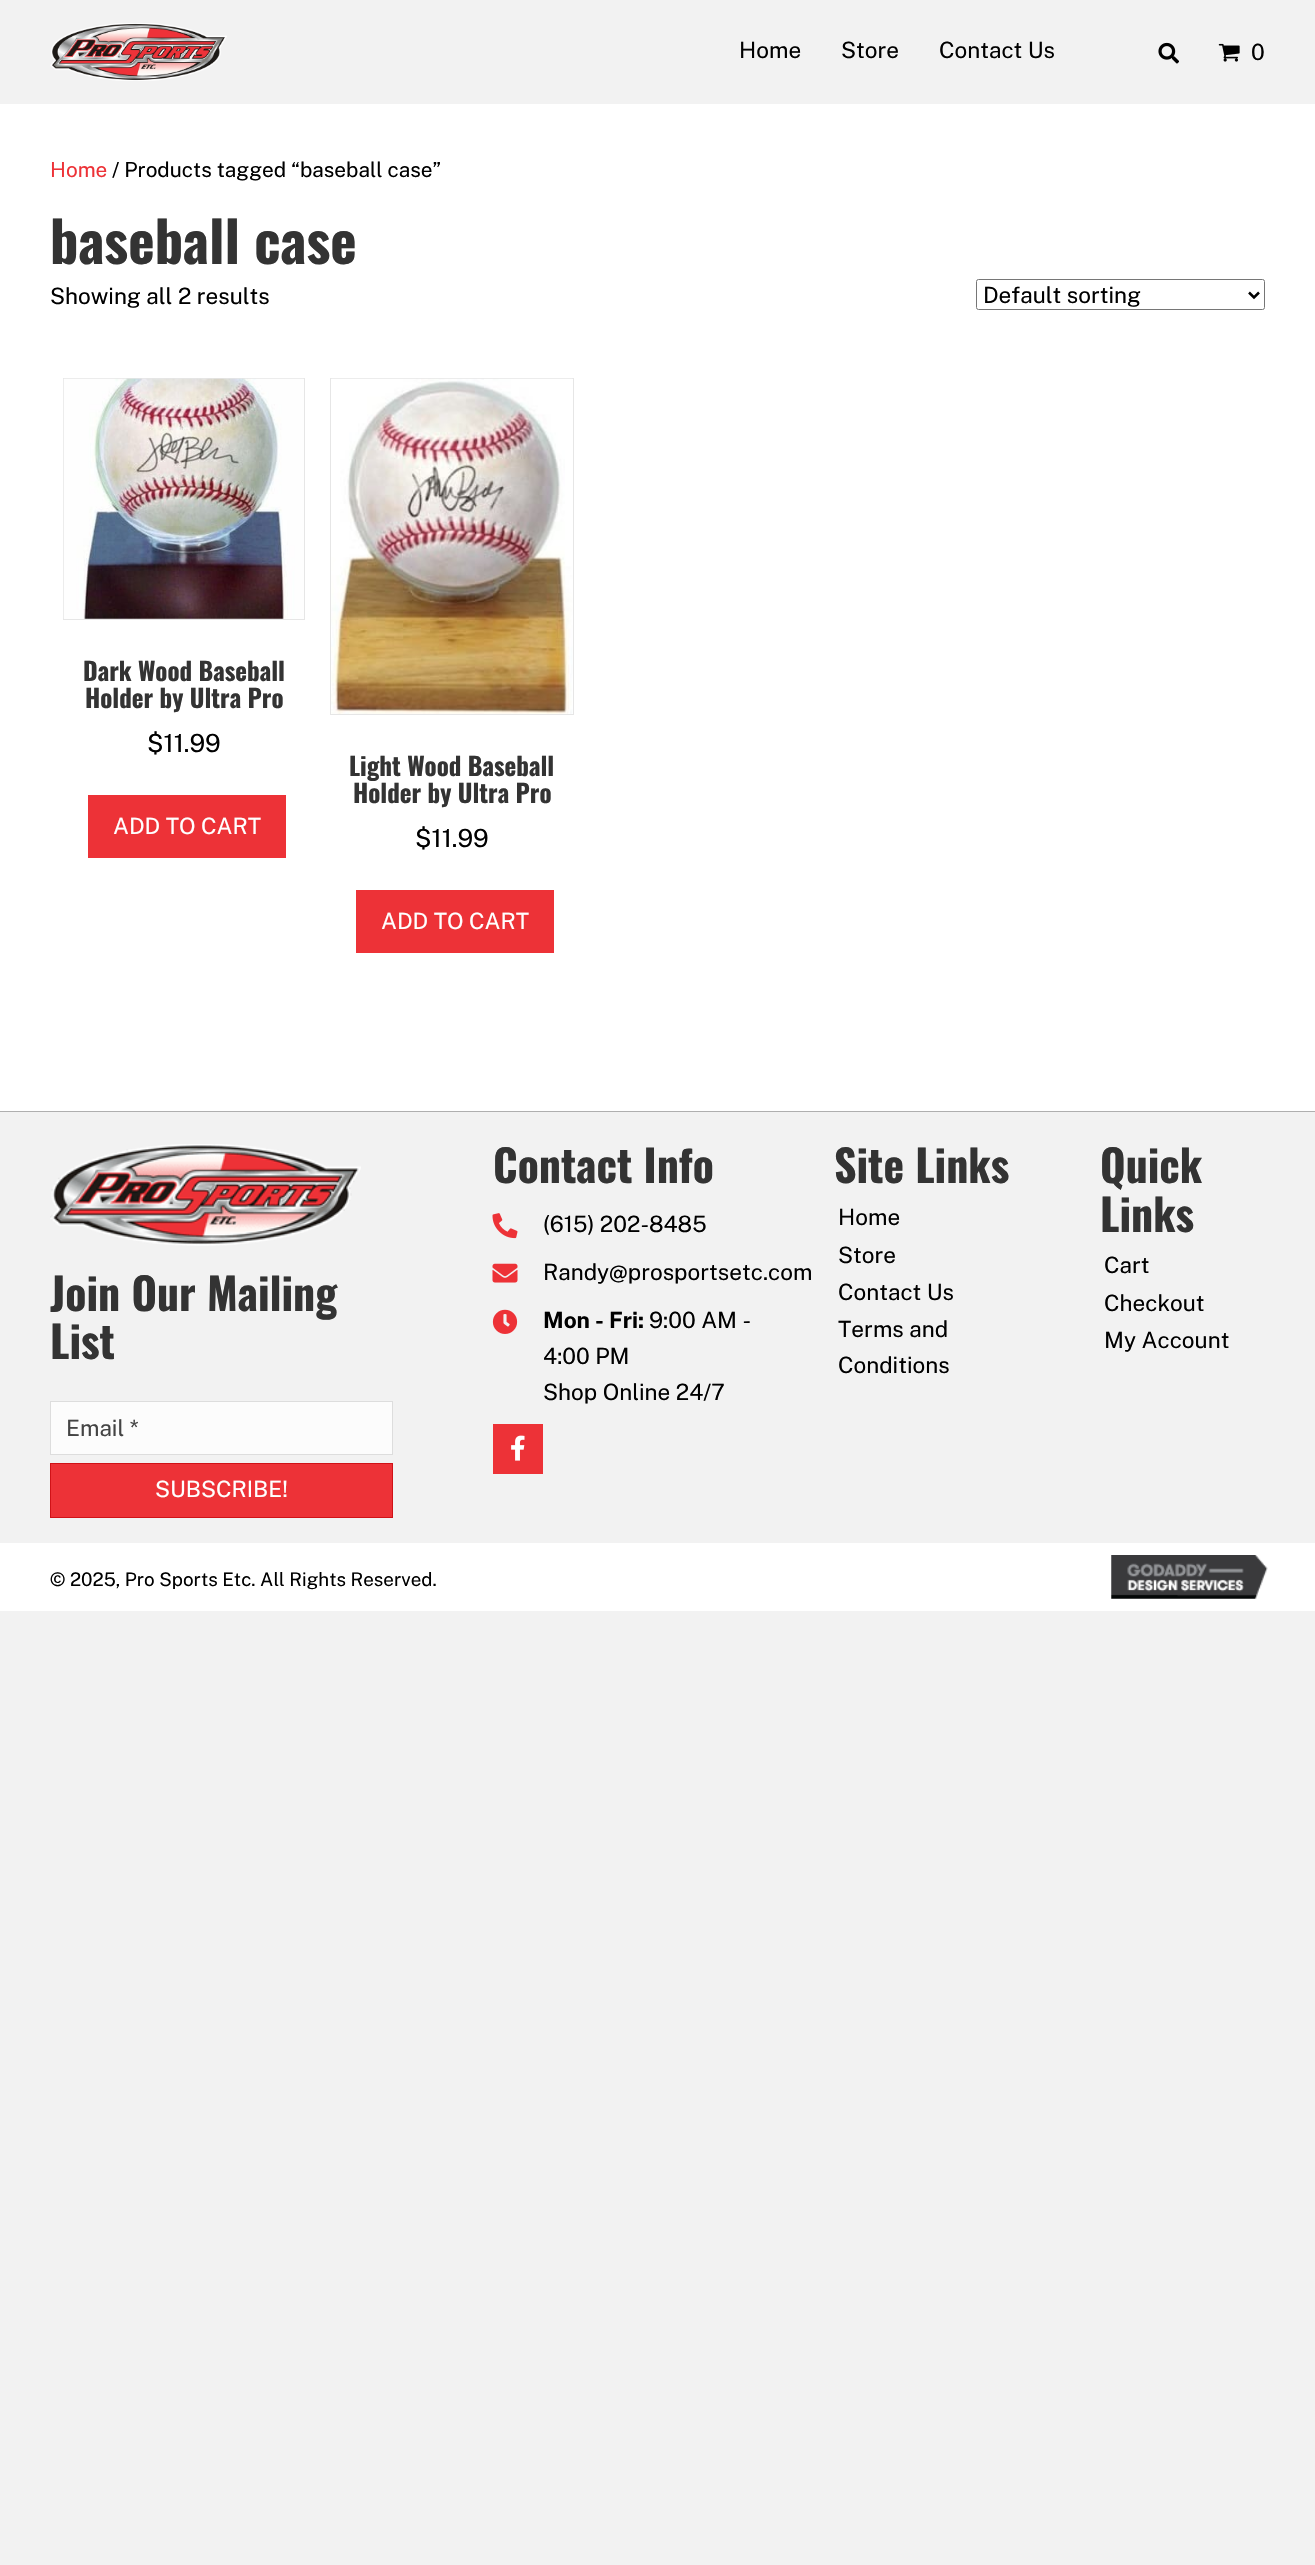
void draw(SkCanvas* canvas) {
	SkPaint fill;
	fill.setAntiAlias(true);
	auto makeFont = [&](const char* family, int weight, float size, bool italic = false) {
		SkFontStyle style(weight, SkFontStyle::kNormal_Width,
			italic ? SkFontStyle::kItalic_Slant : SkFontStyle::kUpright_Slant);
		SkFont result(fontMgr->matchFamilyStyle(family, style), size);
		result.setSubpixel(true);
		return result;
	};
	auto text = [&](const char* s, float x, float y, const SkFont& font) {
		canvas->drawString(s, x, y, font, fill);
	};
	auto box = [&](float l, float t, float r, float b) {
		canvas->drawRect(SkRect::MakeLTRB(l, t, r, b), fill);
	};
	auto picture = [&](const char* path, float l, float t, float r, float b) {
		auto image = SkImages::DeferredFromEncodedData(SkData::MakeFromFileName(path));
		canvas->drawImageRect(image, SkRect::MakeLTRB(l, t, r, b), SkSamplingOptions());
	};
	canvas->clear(0xFFF2F2F2);
	picture("image0.png", 50, 23, 227, 81);
	picture("image1.png", 1158, 42, 1179, 64);
	picture("image2.png", 1218, 43, 1240, 62);
	fill.setColor(0xFFFFFFFF);
	box(0, 104, 1315, 1111);
	fill.setStyle(SkPaint::kStroke_Style);
	fill.setStrokeWidth(1);
	fill.setColor(0xFF767676);
	canvas->drawRoundRect(SkRect::MakeLTRB(976.5f, 279.5f, 1264.5f, 309.5f), 2, 2, fill);
	fill.setStrokeWidth(2.5f);
	fill.setColor(0xFF000000);
	canvas->drawPath(SkPathBuilder().moveTo(1249, 292.5f).lineTo(1254, 297.5f).lineTo(1259, 292.5f).detach(), fill);
	fill.setStrokeWidth(1);
	fill.setColor(0xFFE6E6E6);
	canvas->drawRect(SkRect::MakeLTRB(63.5f, 378.5f, 304.5f, 619.5f), fill);
	picture("image3.png", 63, 378, 304, 619);
	fill.setStyle(SkPaint::kFill_Style);
	fill.setColor(0xFFED3237);
	box(88, 795, 286, 858);
	fill.setStyle(SkPaint::kStroke_Style);
	fill.setColor(0xFFE6E6E6);
	canvas->drawRect(SkRect::MakeLTRB(330.5f, 378.5f, 573.5f, 714.5f), fill);
	picture("image4.png", 331, 378, 573, 714);
	fill.setStyle(SkPaint::kFill_Style);
	fill.setColor(0xFFED3237);
	box(356, 890, 554, 953);
	fill.setColor(0xFFAFAFAF);
	box(0, 1111, 1315, 1112);
	picture("image5.png", 492, 1213, 518, 1239);
	picture("image6.png", 492, 1263, 518, 1283);
	picture("image7.png", 492, 1309, 518, 1334);
	fill.setColor(0xFFED3237);
	box(493, 1424, 543, 1474);
	picture("image8.png", 511, 1435, 525, 1461);
	picture("image9.png", 50, 1144, 361, 1246);
	fill.setColor(0xFFFCFCFC);
	canvas->drawRect(SkRect::MakeLTRB(50.5f, 1401.5f, 392.5f, 1454.5f), fill);
	fill.setStyle(SkPaint::kStroke_Style);
	fill.setColor(0xFFDDDDDD);
	canvas->drawRect(SkRect::MakeLTRB(50.5f, 1401.5f, 392.5f, 1454.5f), fill);
	fill.setStyle(SkPaint::kFill_Style);
	fill.setColor(0xFFED3237);
	canvas->drawRect(SkRect::MakeLTRB(50.5f, 1463.5f, 392.5f, 1517.5f), fill);
	fill.setStyle(SkPaint::kStroke_Style);
	fill.setColor(0xFFD01217);
	canvas->drawRect(SkRect::MakeLTRB(50.5f, 1463.5f, 392.5f, 1517.5f), fill);
	fill.setStyle(SkPaint::kFill_Style);
	fill.setColor(0xFFFFFFFF);
	box(0, 1543, 1315, 1611);
	picture("image10.png", 1111, 1555, 1268, 1599);
	auto font1 = makeFont("Public Sans", 400, 22.5f);
	fill.setColor(0xFF000000);
	text("Home", 739, 58, font1);
	text("Store", 841, 58, font1);
	text("Contact Us", 939, 58, font1);
	text("0", 1251, 60, font1);
	auto font2 = makeFont("Public Sans", 400, 20.75f);
	fill.setColor(0xFFED3237);
	text("Home", 50, 177, font2);
	fill.setColor(0xFF000000);
	text("/ Products tagged “baseball case”", 112, 177, font2);
	auto font3 = makeFont("Oswald", 700, 56.25f);
	fill.setColor(0xFF333333);
	text("baseball case", 50, 264, font3);
	fill.setColor(0xFF000000);
	text("Showing all 2 results", 50, 304, font1);
	text("Default sorting", 983, 303, font1);
	auto font4 = makeFont("Oswald", 700, 25);
	fill.setColor(0xFF333333);
	text("Dark Wood Baseball", 83, 681, font4);
	text("Holder by Ultra Pro", 85, 708, font4);
	auto font5 = makeFont("Public Sans", 400, 25);
	fill.setColor(0xFF000000);
	text("$11.99", 147, 752, font5);
	fill.setColor(0xFFFFFFFF);
	text("ADD TO CART", 113, 834, font1);
	fill.setColor(0xFF333333);
	text("Light Wood Baseball", 349, 776, font4);
	text("Holder by Ultra Pro", 353, 803, font4);
	fill.setColor(0xFF000000);
	text("$11.99", 415, 847, font5);
	fill.setColor(0xFFFFFFFF);
	text("ADD TO CART", 381, 929, font1);
	auto font6 = makeFont("Oswald", 700, 43.75f);
	fill.setColor(0xFF333333);
	text("Contact Info", 493, 1183, font6);
	fill.setColor(0xFF000000);
	text("(615) 202-8485", 543, 1232, font1);
	text("Randy@prosportsetc.com", 543, 1280, font1);
	auto font7 = makeFont("Public Sans", 700, 22.5f);
	text("Mon - Fri:", 543, 1328, font7);
	text("9:00 AM -", 649, 1328, font1);
	text("4:00 PM", 543, 1364, font1);
	text("Shop Online 24/7", 543, 1400, font1);
	fill.setColor(0xFF333333);
	text("Site Links", 834, 1183, font6);
	fill.setColor(0xFF000000);
	text("Home", 838, 1225, font1);
	text("Store", 838, 1263, font1);
	text("Contact Us", 838, 1300, font1);
	text("Terms and", 838, 1337, font1);
	text("Conditions", 838, 1373, font1);
	fill.setColor(0xFF333333);
	text("Quick", 1100, 1183, font6);
	text("Links", 1100, 1232, font6);
	fill.setColor(0xFF000000);
	text("Cart", 1104, 1273, font1);
	text("Checkout", 1104, 1311, font1);
	text("My Account", 1104, 1348, font1);
	fill.setColor(0xFF333333);
	text("Join Our Mailing", 50, 1311, font6);
	text("List", 50, 1359, font6);
	fill.setColor(0xFF444444);
	text("Email *", 66, 1436, font1);
	fill.setColor(0xFFFFFFFF);
	text("SUBSCRIBE!", 155, 1497, font1);
	auto font8 = makeFont("Public Sans", 400, 18.75f);
	fill.setColor(0xFF000000);
	text("© 2025, Pro Sports Etc. All Rights Reserved.", 50, 1586, font8);
}
